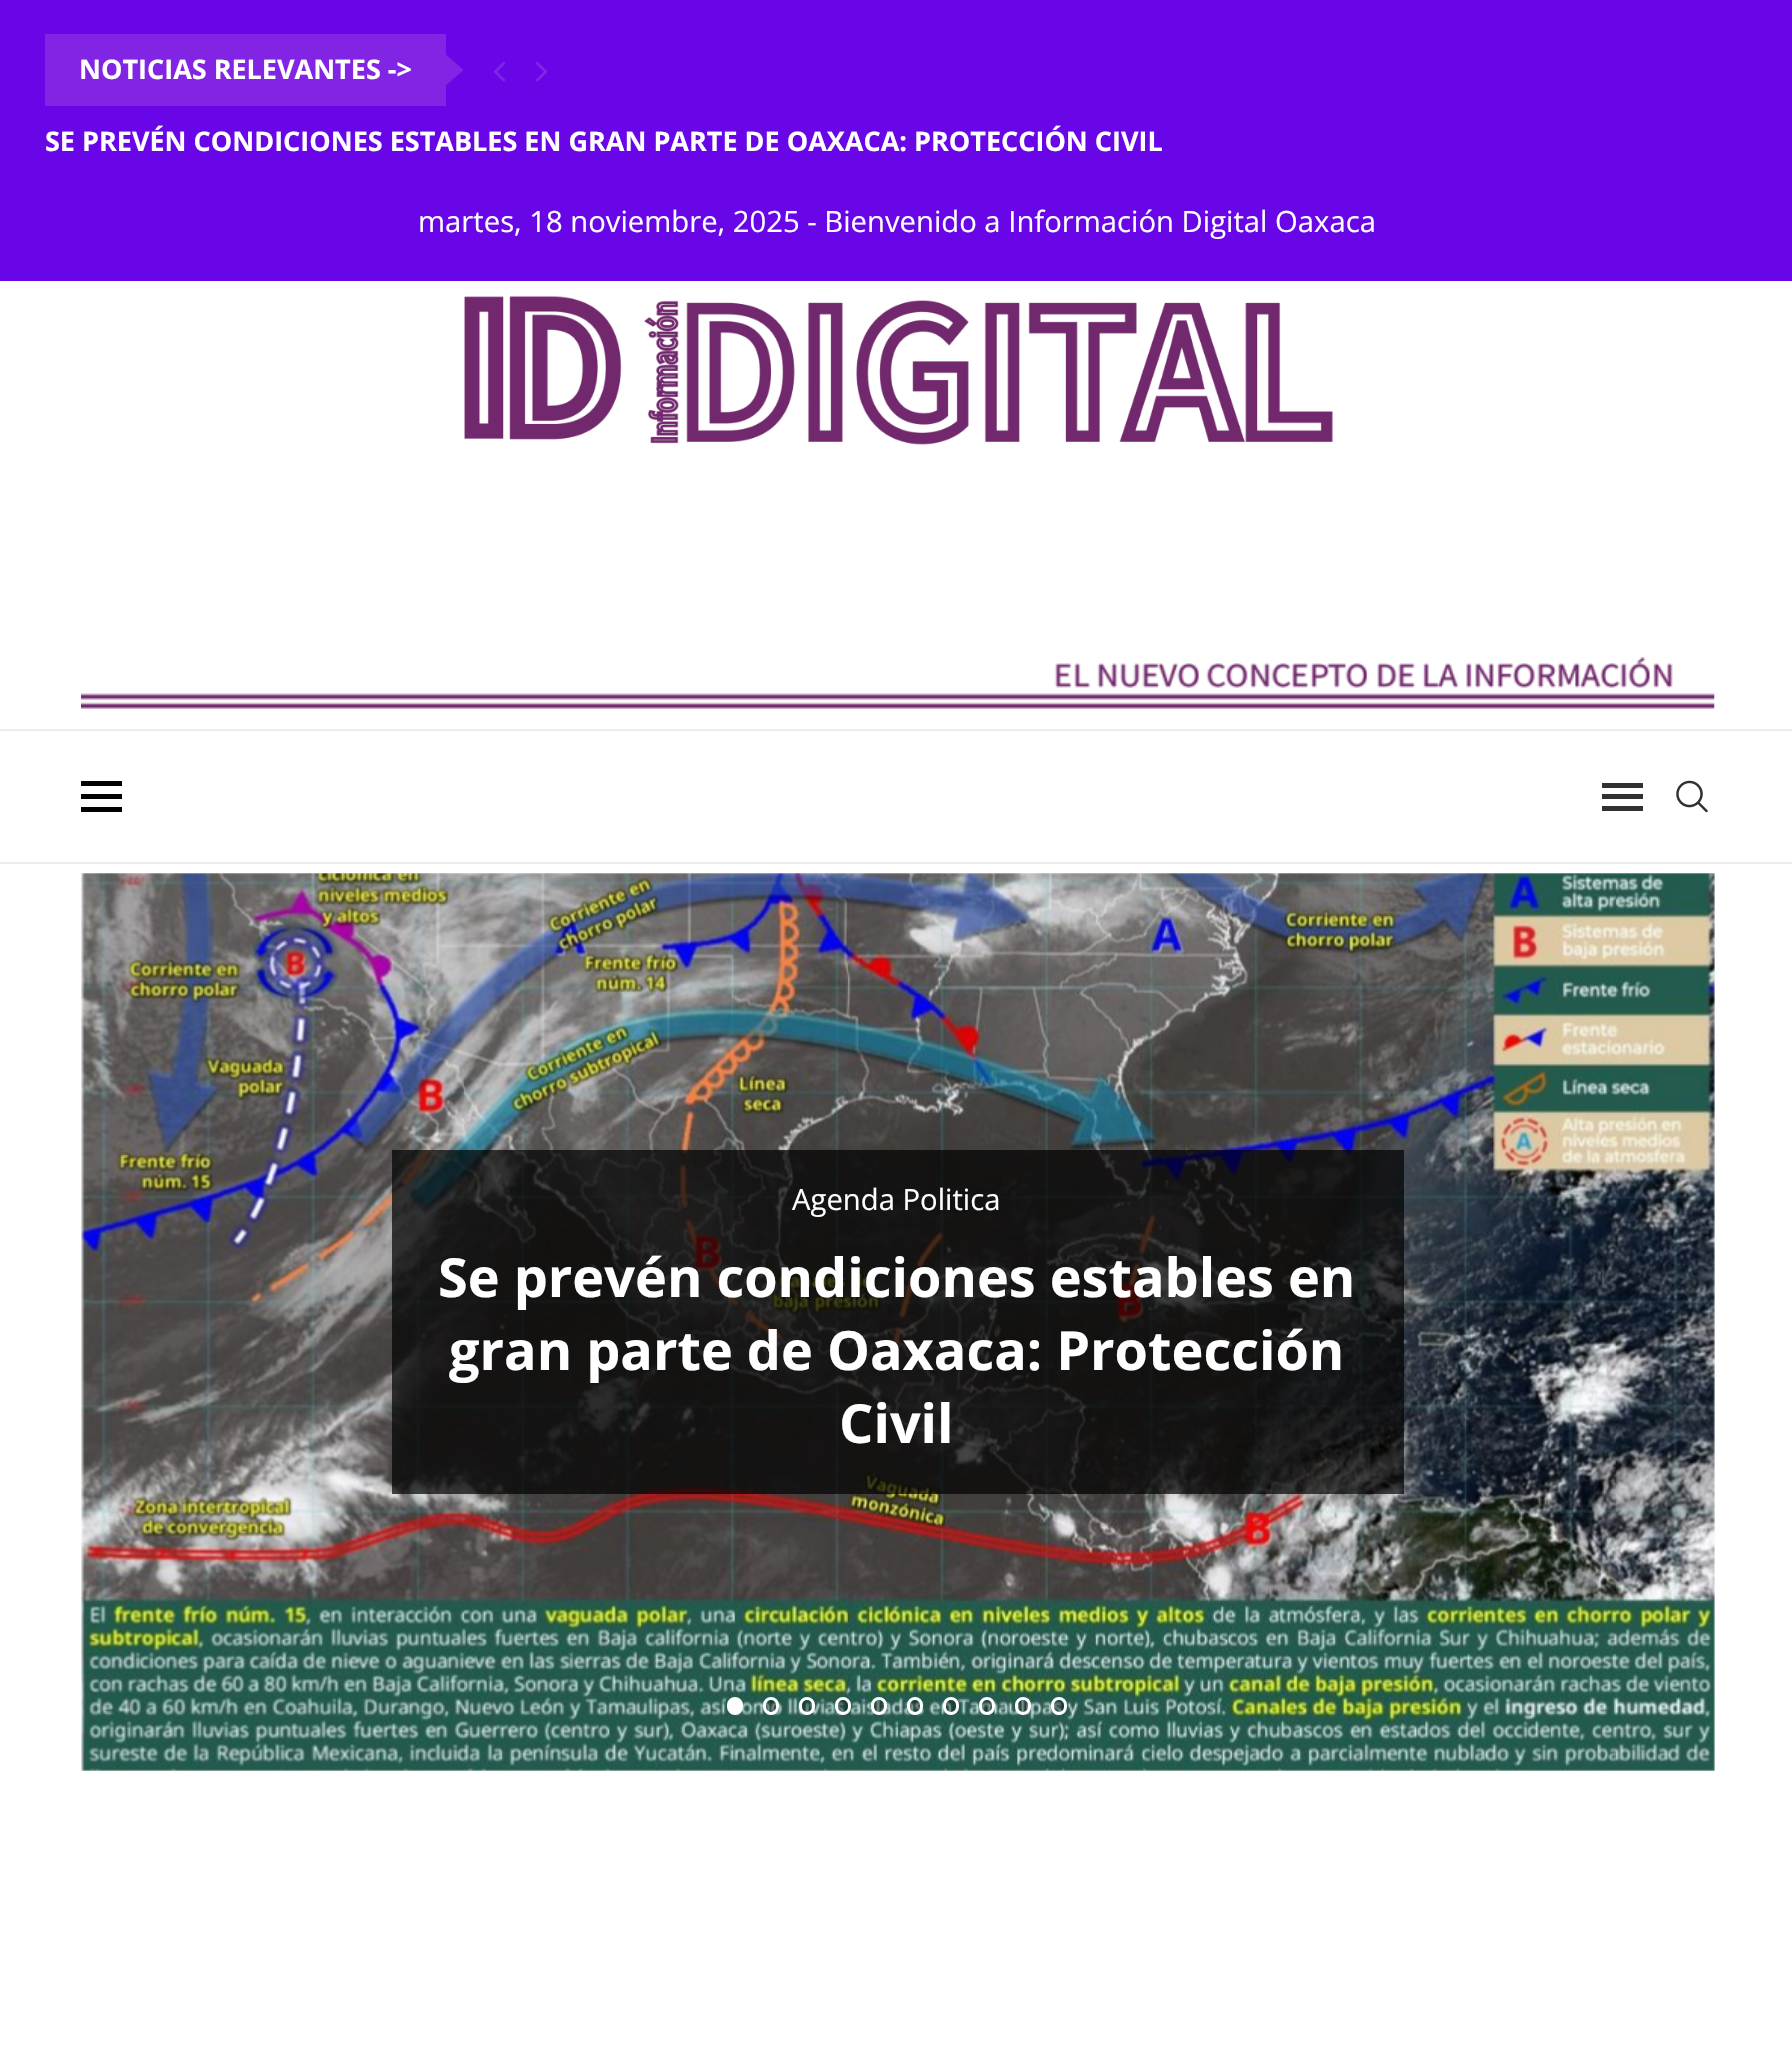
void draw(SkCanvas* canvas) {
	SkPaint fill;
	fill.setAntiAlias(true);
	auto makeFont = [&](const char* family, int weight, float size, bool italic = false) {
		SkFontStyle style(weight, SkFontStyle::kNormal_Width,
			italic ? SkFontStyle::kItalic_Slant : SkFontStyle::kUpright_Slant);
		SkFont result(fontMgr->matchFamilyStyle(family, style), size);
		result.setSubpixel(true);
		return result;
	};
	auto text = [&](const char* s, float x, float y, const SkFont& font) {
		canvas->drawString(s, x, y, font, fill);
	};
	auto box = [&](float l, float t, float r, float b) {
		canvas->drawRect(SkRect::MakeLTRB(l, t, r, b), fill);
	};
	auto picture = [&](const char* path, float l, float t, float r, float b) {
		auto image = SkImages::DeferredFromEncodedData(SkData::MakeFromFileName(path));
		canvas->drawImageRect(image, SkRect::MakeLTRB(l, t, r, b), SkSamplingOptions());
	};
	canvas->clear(0xFFFFFFFF);
	fill.setColor(0xFF6806E8);
	box(0, 0, 1792, 281);
	fill.setColor(0xFF8224E3);
	box(45, 34, 446, 106);
	canvas->drawPath(SkPathBuilder().moveTo(443, 88).lineTo(443, 52).lineTo(463.5f, 70).close().detach(), fill);
	picture("image0.png", 493, 61, 506, 82);
	picture("image1.png", 536, 61, 548, 82);
	picture("image2.png", 464, 295, 1334, 445);
	picture("image3.png", 81, 656, 1715, 709);
	fill.setColor(0xFFECECEC);
	box(0, 729, 1792, 731);
	box(0, 862, 1792, 864);
	fill.setColor(0xFF000000);
	box(81, 781, 122, 786);
	box(81, 794, 122, 799);
	box(81, 807, 122, 812);
	fill.setColor(0xFF313131);
	box(1602, 783, 1643, 788);
	box(1602, 806, 1643, 811);
	box(1602, 794, 1643, 799);
	picture("image4.png", 1676, 780, 1708, 813);
	fill.setColor(0xFFF5F5F5);
	box(81, 873, 1715, 1771);
	picture("image5.png", 81, 873, 1715, 1771);
	fill.setColor(0xB3000000);
	box(392, 1150, 1404, 1494);
	fill.setColor(0xFFFFFFFF);
	canvas->drawRoundRect(SkRect::MakeLTRB(728.5f, 1698.5f, 741.5f, 1713.5f), 6.5f, 6.5f, fill);
	fill.setStyle(SkPaint::kStroke_Style);
	fill.setStrokeWidth(3);
	canvas->drawRoundRect(SkRect::MakeLTRB(728.5f, 1698.5f, 741.5f, 1713.5f), 6.5f, 6.5f, fill);
	fill.setStyle(SkPaint::kFill_Style);
	fill.setColor(0x4D000000);
	canvas->drawRoundRect(SkRect::MakeLTRB(764.5f, 1698.5f, 777.5f, 1713.5f), 6.5f, 6.5f, fill);
	fill.setStyle(SkPaint::kStroke_Style);
	fill.setColor(0xFFFFFFFF);
	canvas->drawRoundRect(SkRect::MakeLTRB(764.5f, 1698.5f, 777.5f, 1713.5f), 6.5f, 6.5f, fill);
	fill.setStyle(SkPaint::kFill_Style);
	fill.setColor(0x4D000000);
	canvas->drawRoundRect(SkRect::MakeLTRB(800.5f, 1698.5f, 813.5f, 1713.5f), 6.5f, 6.5f, fill);
	fill.setStyle(SkPaint::kStroke_Style);
	fill.setColor(0xFFFFFFFF);
	canvas->drawRoundRect(SkRect::MakeLTRB(800.5f, 1698.5f, 813.5f, 1713.5f), 6.5f, 6.5f, fill);
	fill.setStyle(SkPaint::kFill_Style);
	fill.setColor(0x4D000000);
	canvas->drawRoundRect(SkRect::MakeLTRB(836.5f, 1698.5f, 849.5f, 1713.5f), 6.5f, 6.5f, fill);
	fill.setStyle(SkPaint::kStroke_Style);
	fill.setColor(0xFFFFFFFF);
	canvas->drawRoundRect(SkRect::MakeLTRB(836.5f, 1698.5f, 849.5f, 1713.5f), 6.5f, 6.5f, fill);
	fill.setStyle(SkPaint::kFill_Style);
	fill.setColor(0x4D000000);
	canvas->drawRoundRect(SkRect::MakeLTRB(872.5f, 1698.5f, 885.5f, 1713.5f), 6.5f, 6.5f, fill);
	fill.setStyle(SkPaint::kStroke_Style);
	fill.setColor(0xFFFFFFFF);
	canvas->drawRoundRect(SkRect::MakeLTRB(872.5f, 1698.5f, 885.5f, 1713.5f), 6.5f, 6.5f, fill);
	fill.setStyle(SkPaint::kFill_Style);
	fill.setColor(0x4D000000);
	canvas->drawRoundRect(SkRect::MakeLTRB(908.5f, 1698.5f, 921.5f, 1713.5f), 6.5f, 6.5f, fill);
	fill.setStyle(SkPaint::kStroke_Style);
	fill.setColor(0xFFFFFFFF);
	canvas->drawRoundRect(SkRect::MakeLTRB(908.5f, 1698.5f, 921.5f, 1713.5f), 6.5f, 6.5f, fill);
	fill.setStyle(SkPaint::kFill_Style);
	fill.setColor(0x4D000000);
	canvas->drawRoundRect(SkRect::MakeLTRB(944.5f, 1698.5f, 957.5f, 1713.5f), 6.5f, 6.5f, fill);
	fill.setStyle(SkPaint::kStroke_Style);
	fill.setColor(0xFFFFFFFF);
	canvas->drawRoundRect(SkRect::MakeLTRB(944.5f, 1698.5f, 957.5f, 1713.5f), 6.5f, 6.5f, fill);
	fill.setStyle(SkPaint::kFill_Style);
	fill.setColor(0x4D000000);
	canvas->drawRoundRect(SkRect::MakeLTRB(980.5f, 1698.5f, 993.5f, 1713.5f), 6.5f, 6.5f, fill);
	fill.setStyle(SkPaint::kStroke_Style);
	fill.setColor(0xFFFFFFFF);
	canvas->drawRoundRect(SkRect::MakeLTRB(980.5f, 1698.5f, 993.5f, 1713.5f), 6.5f, 6.5f, fill);
	fill.setStyle(SkPaint::kFill_Style);
	fill.setColor(0x4D000000);
	canvas->drawRoundRect(SkRect::MakeLTRB(1016.5f, 1698.5f, 1029.5f, 1713.5f), 6.5f, 6.5f, fill);
	fill.setStyle(SkPaint::kStroke_Style);
	fill.setColor(0xFFFFFFFF);
	canvas->drawRoundRect(SkRect::MakeLTRB(1016.5f, 1698.5f, 1029.5f, 1713.5f), 6.5f, 6.5f, fill);
	fill.setStyle(SkPaint::kFill_Style);
	fill.setColor(0x4D000000);
	canvas->drawRoundRect(SkRect::MakeLTRB(1052.5f, 1698.5f, 1065.5f, 1713.5f), 6.5f, 6.5f, fill);
	fill.setStyle(SkPaint::kStroke_Style);
	fill.setColor(0xFFFFFFFF);
	canvas->drawRoundRect(SkRect::MakeLTRB(1052.5f, 1698.5f, 1065.5f, 1713.5f), 6.5f, 6.5f, fill);
	auto font1 = makeFont("Open Sans", 700, 27);
	fill.setStyle(SkPaint::kFill_Style);
	text("NOTICIAS RELEVANTES ->", 79, 79, font1);
	text("SE PREVÉN CONDICIONES ESTABLES EN GRAN PARTE DE OAXACA: PROTECCIÓN CIVIL", 45, 151, font1);
	auto font2 = makeFont("Open Sans", 400, 29.25f);
	text("martes, 18 noviembre, 2025 - Bienvenido a Información Digital Oaxaca", 418, 232, font2);
	text("Agenda Politica", 792, 1210, font2);
	auto font3 = makeFont("Open Sans", 700, 54);
	text("Se prevén condiciones estables en", 438, 1297, font3);
	text("gran parte de Oaxaca: Protección", 449, 1370, font3);
	text("Civil", 839, 1443, font3);
}
